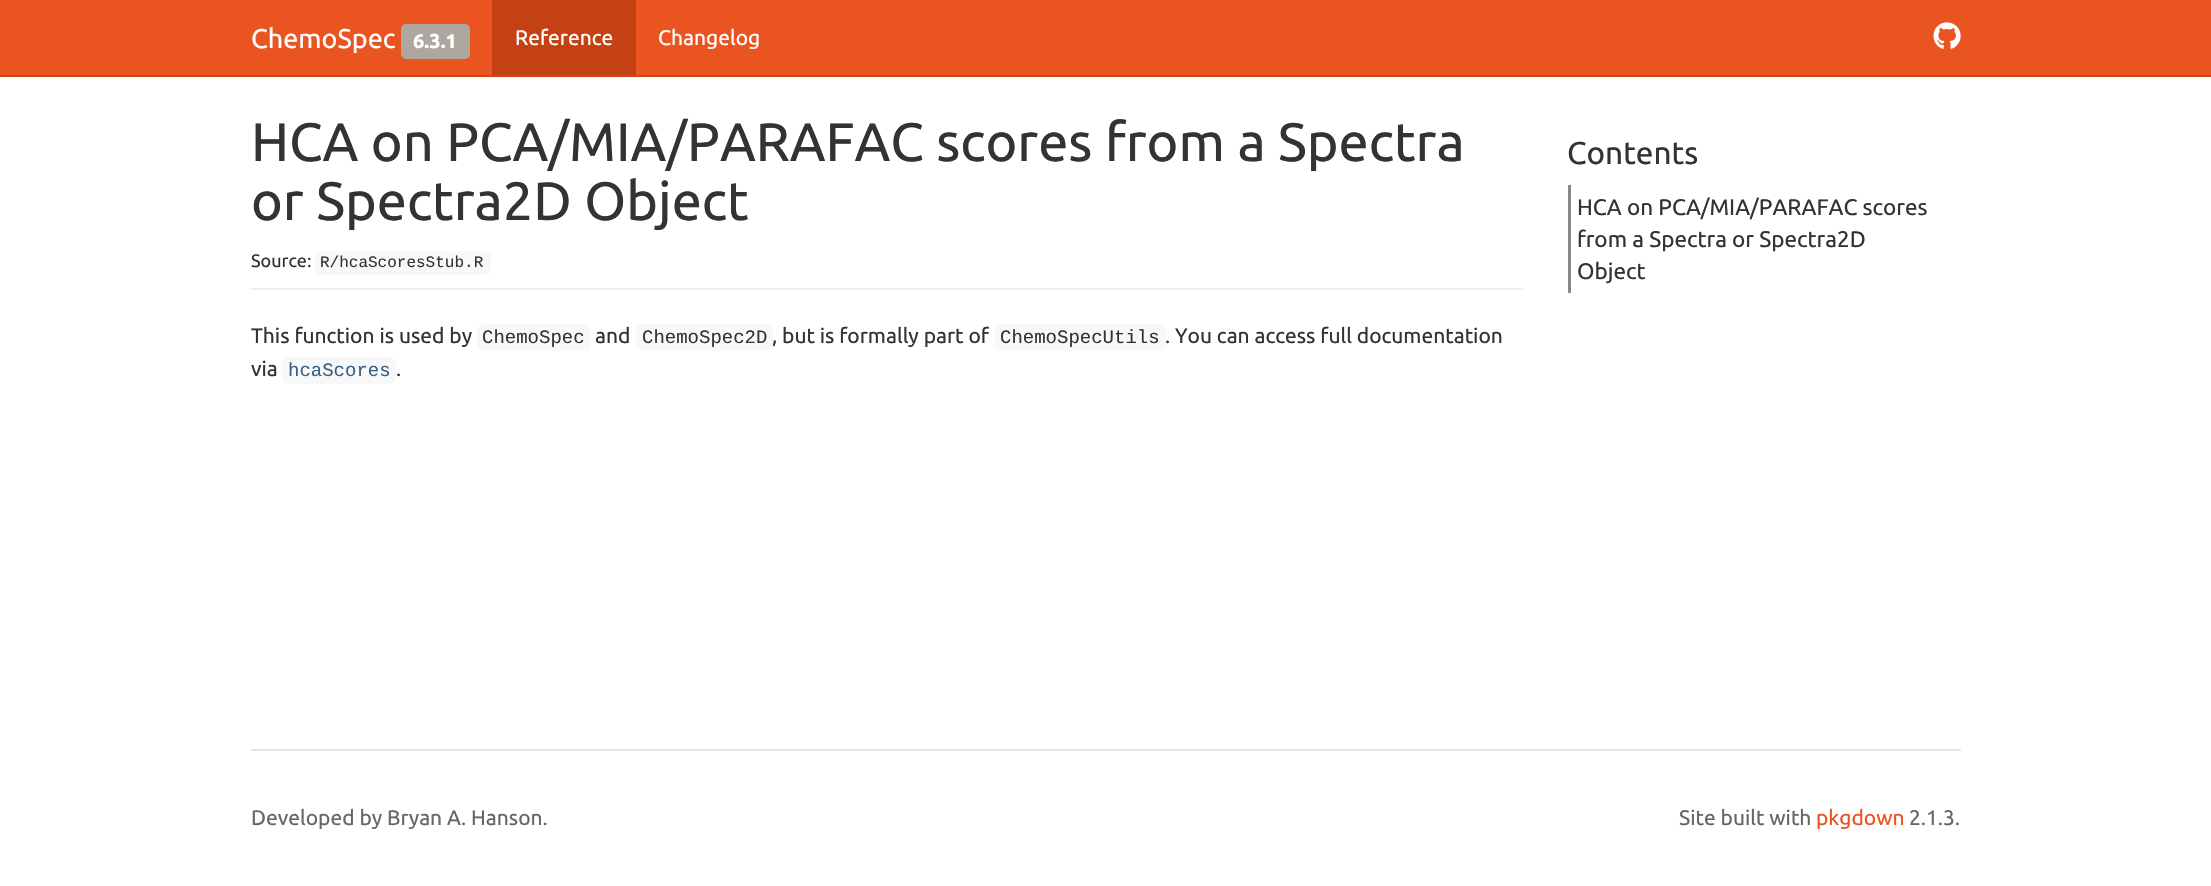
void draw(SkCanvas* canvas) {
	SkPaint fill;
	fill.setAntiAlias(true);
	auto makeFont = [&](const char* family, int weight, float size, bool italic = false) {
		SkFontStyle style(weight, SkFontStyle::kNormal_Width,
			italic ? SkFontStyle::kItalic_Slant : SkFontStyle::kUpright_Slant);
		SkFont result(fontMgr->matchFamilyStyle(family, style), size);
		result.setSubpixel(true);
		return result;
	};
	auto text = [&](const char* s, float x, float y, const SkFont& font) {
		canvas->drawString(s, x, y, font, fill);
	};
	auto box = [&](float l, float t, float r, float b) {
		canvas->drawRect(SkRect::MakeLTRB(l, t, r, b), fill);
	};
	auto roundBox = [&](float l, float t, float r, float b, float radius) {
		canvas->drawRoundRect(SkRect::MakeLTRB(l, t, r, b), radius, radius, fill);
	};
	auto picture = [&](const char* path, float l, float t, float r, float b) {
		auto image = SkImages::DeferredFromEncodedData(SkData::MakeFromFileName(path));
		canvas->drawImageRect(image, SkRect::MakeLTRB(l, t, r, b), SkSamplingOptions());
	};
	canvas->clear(0xFFFFFFFF);
	fill.setColor(0xFFE95420);
	box(0, 0, 2211, 75);
	fill.setColor(0xFFD34615);
	box(0, 75, 2211, 77);
	fill.setColor(0xFFAEA79F);
	roundBox(401, 24, 470, 59, 5);
	fill.setColor(0xFFC34113);
	box(492, 0, 636, 75);
	picture("image0.png", 1933, 22, 1961, 49);
	fill.setColor(0xFFEEEEEE);
	box(251, 288, 1523, 290);
	fill.setColor(0xFFF8F8F8);
	roundBox(315, 251, 491, 275, 6);
	roundBox(477, 324, 591, 351, 6);
	roundBox(636, 324, 773, 351, 6);
	roundBox(995, 324, 1166, 351, 6);
	roundBox(282, 357, 396, 384, 6);
	fill.setColor(0xFF878787);
	box(1568, 185, 1571, 293);
	fill.setColor(0xFFE5E5E5);
	box(251, 749, 1961, 751);
	auto font1 = makeFont("Ubuntu", 400, 27);
	fill.setColor(0xFFFFFFFF);
	text("ChemoSpec", 251, 48, font1);
	auto font2 = makeFont("Ubuntu", 700, 20);
	text("6.3.1", 413, 48, font2);
	auto font3 = makeFont("Ubuntu", 400, 21);
	text("Reference", 515, 45, font3);
	text("Changelog", 658, 45, font3);
	auto font4 = makeFont("Ubuntu", 400, 54);
	fill.setColor(0xFF333333);
	text("HCA on PCA/MIA/PARAFAC scores from a Spectra", 251, 161, font4);
	text("or Spectra2D Object", 251, 220, font4);
	auto font5 = makeFont("Ubuntu", 400, 18);
	text("Source:", 251, 267, font5);
	auto font6 = makeFont("Liberation Mono", 400, 16);
	text("R/hcaScoresStub.R", 320, 267, font6);
	text("This function is used by", 251, 343, font3);
	auto font7 = makeFont("Liberation Mono", 400, 19);
	text("ChemoSpec", 482, 343, font7);
	text("and", 595, 343, font3);
	text("ChemoSpec2D", 642, 343, font7);
	text(", but is formally part of", 772, 343, font3);
	text("ChemoSpecUtils", 1000, 343, font7);
	text(". You can access full documentation", 1165, 343, font3);
	text("via", 251, 376, font3);
	fill.setColor(0xFF375F84);
	text("hcaScores", 288, 376, font7);
	fill.setColor(0xFF333333);
	text(".", 396, 376, font3);
	auto font8 = makeFont("Ubuntu", 400, 31.5f);
	text("Contents", 1567, 164, font8);
	auto font9 = makeFont("Ubuntu", 400, 22.5f);
	text("HCA on PCA/MIA/PARAFAC scores", 1577, 215, font9);
	text("from a Spectra or Spectra2D", 1577, 247, font9);
	text("Object", 1577, 279, font9);
	fill.setColor(0xFF666666);
	text("Developed by Bryan A. Hanson.", 251, 825, font3);
	text("Site built with", 1679, 825, font3);
	fill.setColor(0xFFE95420);
	text("pkgdown", 1816, 825, font3);
	fill.setColor(0xFF666666);
	text("2.1.3.", 1909, 825, font3);
}
